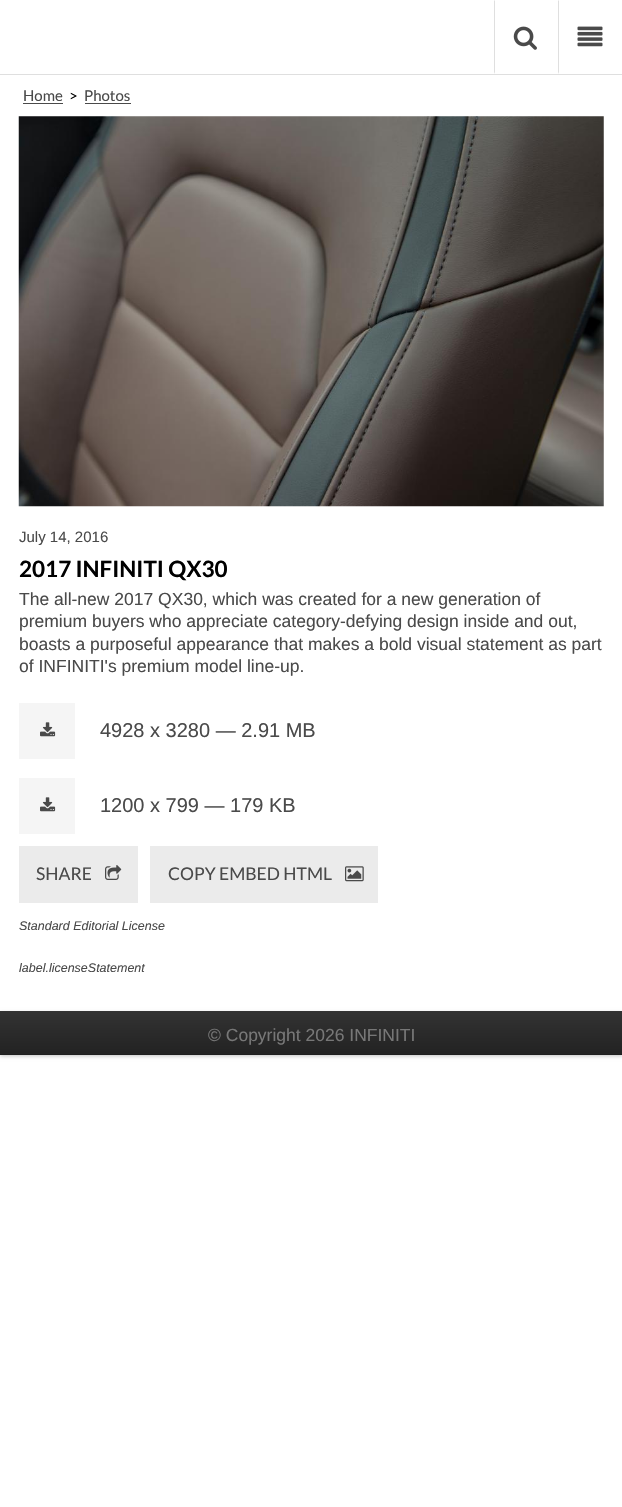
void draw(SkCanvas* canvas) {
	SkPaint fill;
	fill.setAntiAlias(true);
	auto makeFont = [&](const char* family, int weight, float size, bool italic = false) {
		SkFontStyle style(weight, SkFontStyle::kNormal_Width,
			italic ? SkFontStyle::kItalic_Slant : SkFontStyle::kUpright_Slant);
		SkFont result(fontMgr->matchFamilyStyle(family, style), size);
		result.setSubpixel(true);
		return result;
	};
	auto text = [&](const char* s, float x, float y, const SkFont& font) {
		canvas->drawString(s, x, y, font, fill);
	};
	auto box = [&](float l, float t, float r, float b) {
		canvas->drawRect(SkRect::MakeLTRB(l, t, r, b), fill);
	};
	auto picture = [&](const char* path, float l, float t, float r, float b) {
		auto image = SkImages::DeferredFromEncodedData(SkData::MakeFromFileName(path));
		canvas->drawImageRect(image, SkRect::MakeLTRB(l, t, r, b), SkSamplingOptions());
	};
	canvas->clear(0xFFFFFFFF);
	fill.setColor(0xFFDFDFDF);
	box(0, 74, 622, 75);
	canvas->drawPath(SkPathBuilder().moveTo(494, 74).lineTo(494, 0).lineTo(495, 1).lineTo(495, 72).close().detach(), fill);
	picture("image0.png", 513, 26, 537, 50);
	canvas->drawPath(SkPathBuilder().moveTo(558, 74).lineTo(558, 0).lineTo(559, 1).lineTo(559, 72).close().detach(), fill);
	picture("image1.png", 577, 26, 603, 47);
	fill.setColor(0xFF4A4A4A);
	box(23, 103, 63, 104);
	box(85, 103, 131, 104);
	picture("image2.png", 18, 116, 604, 507);
	fill.setColor(0xFFF5F5F5);
	box(19, 703, 75, 759);
	picture("image3.png", 40, 722, 56, 737);
	box(19, 778, 75, 834);
	picture("image3.png", 40, 797, 56, 812);
	fill.setColor(0xFFEBEBEB);
	box(19, 846, 138, 903);
	picture("image4.png", 105, 865, 122, 880);
	box(150, 846, 378, 903);
	picture("image5.png", 345, 866, 364, 882);
	fill.setColor(0x40000000);
	fill.setMaskFilter(SkMaskFilter::MakeBlur(kNormal_SkBlurStyle, 2));
	canvas->drawRect(SkRect::MakeLTRB(0, 1013, 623, 1056), fill);
	fill.setMaskFilter(nullptr);
	{
		const SkColor colors[] = {0xFF333333, 0xFF222222};
		const float stops[] = {0, 1};
		const SkPoint ends[] = {{311, 1011}, {311, 1055}};
		fill.setShader(SkGradientShader::MakeLinear(ends, colors, stops, 2, SkTileMode::kClamp));
		fill.setAlpha(255);
	}
	box(0, 1011, 622, 1054);
	fill.setShader(nullptr);
	fill.setColor(0xFF1F1F1F);
	box(0, 1054, 622, 1055);
	auto font1 = makeFont("Lato", 400, 15);
	fill.setColor(0xFF4A4A4A);
	text("Home", 23, 101, font1);
	fill.setColor(0xFF000000);
	text(">", 69, 101, font1);
	fill.setColor(0xFF4A4A4A);
	text("Photos", 84, 101, font1);
	auto font2 = makeFont("Liberation Sans", 400, 15);
	text("July 14, 2016", 19, 542, font2);
	auto font3 = makeFont("Lato", 700, 22.5f);
	fill.setColor(0xFF000000);
	text("2017 INFINITI QX30", 19, 577, font3);
	auto font4 = makeFont("Liberation Sans", 400, 17.5f);
	fill.setColor(0xFF4A4A4A);
	text("The all-new 2017 QX30, which was created for a new generation of", 19, 605, font4);
	text("premium buyers who appreciate category-defying design inside and out,", 19, 627, font4);
	text("boasts a purposeful appearance that makes a bold visual statement as part", 19, 650, font4);
	text("of INFINITI's premium model line-up.", 19, 672, font4);
	auto font5 = makeFont("Liberation Sans", 400, 20);
	text("4928 x 3280 — 2.91 MB", 100, 737, font5);
	text("1200 x 799 — 179 KB", 100, 812, font5);
	auto font6 = makeFont("Lato", 400, 17.5f);
	text("SHARE", 36, 880, font6);
	text("COPY EMBED HTML", 168, 880, font6);
	auto font7 = makeFont("Liberation Sans", 400, 12.5f, true);
	text("Standard Editorial License", 19, 930, font7);
	text("label.licenseStatement", 19, 972, font7);
	fill.setColor(0xFF777777);
	text("© Copyright 2026 INFINITI", 208, 1041, font4);
}
